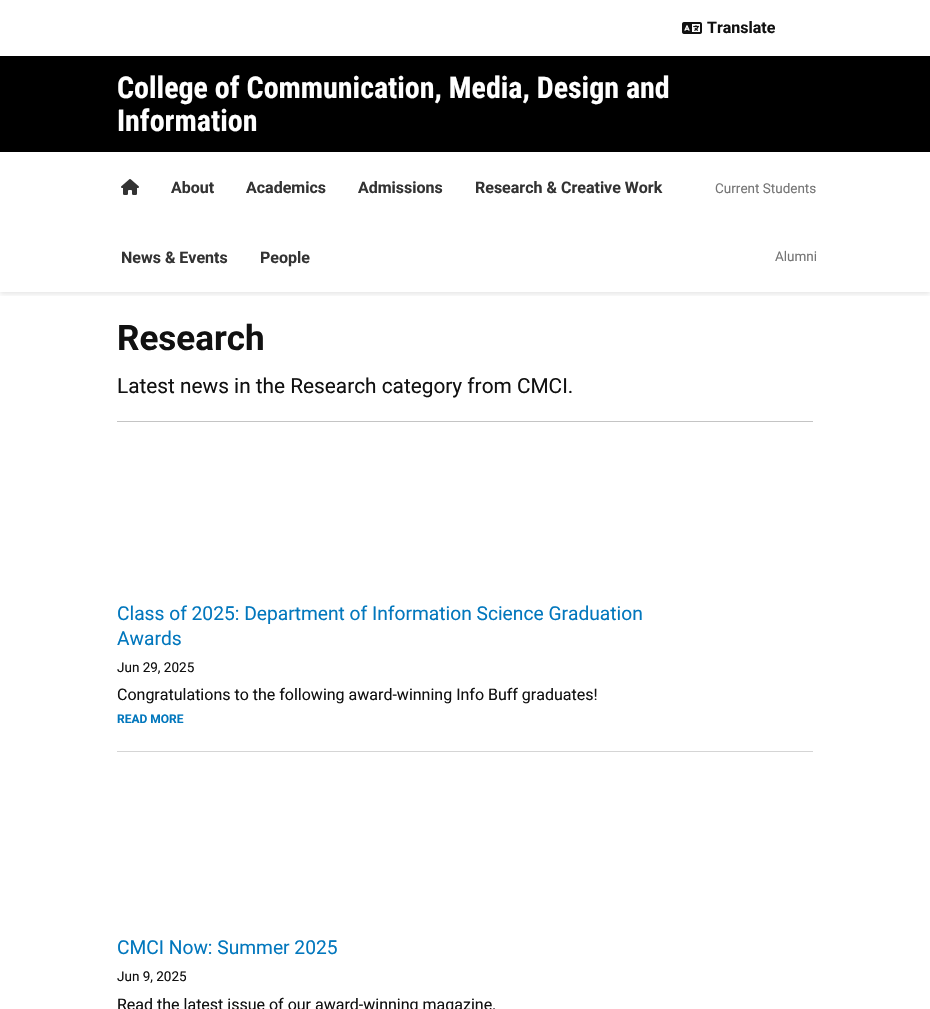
void draw(SkCanvas* canvas) {
	SkPaint fill;
	fill.setAntiAlias(true);
	auto makeFont = [&](const char* family, int weight, float size, bool italic = false) {
		SkFontStyle style(weight, SkFontStyle::kNormal_Width,
			italic ? SkFontStyle::kItalic_Slant : SkFontStyle::kUpright_Slant);
		SkFont result(fontMgr->matchFamilyStyle(family, style), size);
		result.setSubpixel(true);
		return result;
	};
	auto text = [&](const char* s, float x, float y, const SkFont& font) {
		canvas->drawString(s, x, y, font, fill);
	};
	auto box = [&](float l, float t, float r, float b) {
		canvas->drawRect(SkRect::MakeLTRB(l, t, r, b), fill);
	};
	auto picture = [&](const char* path, float l, float t, float r, float b) {
		auto image = SkImages::DeferredFromEncodedData(SkData::MakeFromFileName(path));
		canvas->drawImageRect(image, SkRect::MakeLTRB(l, t, r, b), SkSamplingOptions());
	};
	canvas->clear(0xFFFFFFFF);
	picture("image0.png", 682, 22, 702, 34);
	canvas->save();
	canvas->clipRect(SkRect::MakeLTRB(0, 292, 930, 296));
	fill.setColor(0x1A000000);
	fill.setMaskFilter(SkMaskFilter::MakeBlur(kNormal_SkBlurStyle, 2.5f));
	canvas->drawRect(SkRect::MakeLTRB(0, 154, 930, 294), fill);
	fill.setMaskFilter(nullptr);
	canvas->restore();
	fill.setColor(0xFF000000);
	box(0, 56, 930, 152);
	picture("image1.png", 121, 179, 139, 195);
	fill.setColor(0xFFC4C4C4);
	box(117, 421, 813, 422);
	fill.setColor(0xFFD5D5D5);
	box(117, 751, 813, 752);
	auto font1 = makeFont("Roboto", 700, 16);
	fill.setColor(0xFF111111);
	text("Translate", 707, 33, font1);
	auto font2 = makeFont("Roboto Condensed", 700, 30);
	fill.setColor(0xFFFFFFFF);
	text("College of Communication, Media, Design and", 117, 98, font2);
	text("Information", 117, 131, font2);
	fill.setColor(0xFF333333);
	text("About", 171, 193, font1);
	text("Academics", 246, 193, font1);
	text("Admissions", 358, 193, font1);
	text("Research & Creative Work", 475, 193, font1);
	text("News & Events", 121, 263, font1);
	text("People", 260, 263, font1);
	auto font3 = makeFont("Roboto", 400, 13.5f);
	fill.setColor(0xFF757575);
	text("Current Students", 715, 193, font3);
	text("Alumni", 775, 261, font3);
	auto font4 = makeFont("Roboto", 700, 35);
	fill.setColor(0xFF111111);
	text("Research", 117, 350, font4);
	auto font5 = makeFont("Roboto", 400, 20.8f);
	text("Latest news in the Research category from CMCI.", 117, 393, font5);
	auto font6 = makeFont("Roboto", 400, 19.2f);
	fill.setColor(0xFF0277BD);
	text("Class of 2025: Department of Information Science Graduation", 117, 620, font6);
	text("Awards", 117, 645, font6);
	fill.setColor(0xFF111111);
	text("Jun 29, 2025", 117, 672, font3);
	auto font7 = makeFont("Roboto", 400, 16);
	text("Congratulations to the following award-winning Info Buff graduates!", 117, 700, font7);
	auto font8 = makeFont("Roboto", 700, 12);
	fill.setColor(0xFF0277BD);
	text("READ MORE", 117, 723, font8);
	text("CMCI Now: Summer 2025", 117, 954, font6);
	fill.setColor(0xFF111111);
	text("Jun 9, 2025", 117, 981, font3);
	text("Read the latest issue of our award-winning magazine.", 117, 1010, font7);
}
